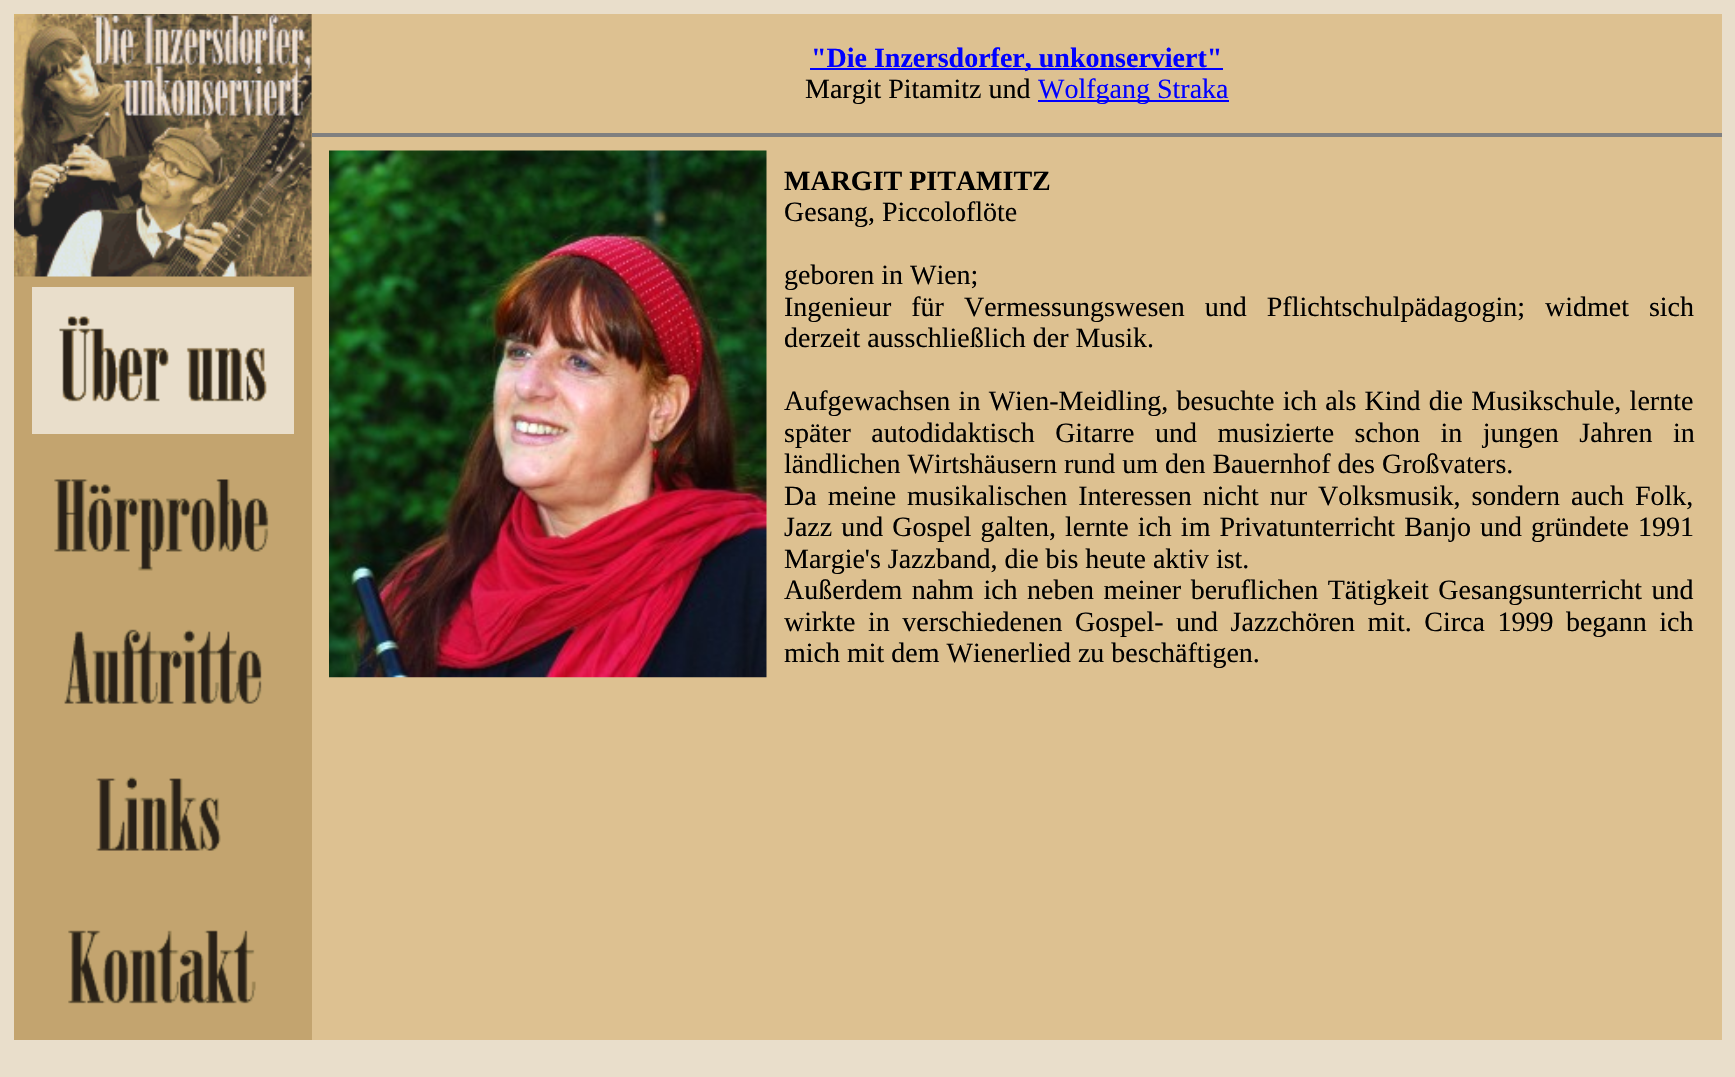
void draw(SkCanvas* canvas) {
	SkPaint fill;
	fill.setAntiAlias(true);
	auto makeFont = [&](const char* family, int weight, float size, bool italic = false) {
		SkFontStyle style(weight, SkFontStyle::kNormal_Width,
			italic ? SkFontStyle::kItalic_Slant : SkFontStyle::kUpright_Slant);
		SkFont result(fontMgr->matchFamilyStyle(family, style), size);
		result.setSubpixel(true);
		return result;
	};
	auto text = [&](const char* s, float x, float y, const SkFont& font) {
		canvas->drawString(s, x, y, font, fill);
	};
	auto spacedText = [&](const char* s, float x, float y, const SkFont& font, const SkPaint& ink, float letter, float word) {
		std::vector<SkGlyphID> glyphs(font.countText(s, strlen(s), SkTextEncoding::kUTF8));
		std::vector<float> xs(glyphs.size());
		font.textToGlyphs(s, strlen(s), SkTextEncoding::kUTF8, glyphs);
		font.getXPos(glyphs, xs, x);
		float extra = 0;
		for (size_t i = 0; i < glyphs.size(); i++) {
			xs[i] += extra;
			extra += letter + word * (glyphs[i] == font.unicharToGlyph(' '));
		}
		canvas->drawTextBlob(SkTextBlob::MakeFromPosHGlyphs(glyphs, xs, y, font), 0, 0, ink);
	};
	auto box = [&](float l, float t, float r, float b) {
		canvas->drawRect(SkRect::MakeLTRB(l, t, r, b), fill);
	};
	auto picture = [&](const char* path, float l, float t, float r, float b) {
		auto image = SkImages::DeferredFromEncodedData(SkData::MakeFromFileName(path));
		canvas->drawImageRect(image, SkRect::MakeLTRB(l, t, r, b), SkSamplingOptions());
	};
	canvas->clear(0xFFE9DECB);
	fill.setColor(0xFFC3A46F);
	box(14, 14, 312, 1040);
	picture("image0.png", 14, 14, 312, 277);
	fill.setColor(0xFFE9DECB);
	box(32, 287, 294, 434);
	picture("image1.png", 59, 316, 267, 402);
	picture("image2.png", 54, 479, 269, 571);
	picture("image3.png", 64, 629, 262, 704);
	picture("image4.png", 96, 776, 221, 851);
	picture("image5.png", 68, 930, 256, 1004);
	fill.setColor(0xFFDDC191);
	box(312, 14, 1722, 1040);
	fill.setColor(0xFF0000FF);
	box(810, 68, 1223, 70);
	box(1038, 100, 1229, 102);
	fill.setColor(0xFF808080);
	box(312, 133, 1722, 137);
	picture("image6.png", 329, 150, 767, 678);
	auto font1 = makeFont("Liberation Serif", 700, 28);
	fill.setColor(0xFF0000FF);
	text("\"Die Inzersdorfer, unkonserviert\"", 811, 67, font1);
	auto font2 = makeFont("Liberation Serif", 400, 28);
	fill.setColor(0xFF000000);
	text("Margit Pitamitz und", 805, 98, font2);
	fill.setColor(0xFF0000FF);
	text("Wolfgang Straka", 1038, 98, font2);
	fill.setColor(0xFF000000);
	text("MARGIT PITAMITZ", 784, 190, font1);
	text("Gesang, Piccoloflöte", 784, 221, font2);
	text("geboren in Wien;", 784, 284, font2);
	spacedText("Ingenieur für Vermessungswesen und Pflichtschulpädagogin; widmet sich", 784, 316, font2, fill, 0, 13);
	text("derzeit ausschließlich der Musik.", 784, 347, font2);
	spacedText("Aufgewachsen in Wien-Meidling, besuchte ich als Kind die Musikschule, lernte", 784, 410, font2, fill, 0, 1.25f);
	spacedText("später autodidaktisch Gitarre und musizierte schon in jungen Jahren in", 784, 442, font2, fill, 0, 13.5f);
	text("ländlichen Wirtshäusern rund um den Bauernhof des Großvaters.", 784, 473, font2);
	spacedText("Da meine musikalischen Interessen nicht nur Volksmusik, sondern auch Folk,", 784, 505, font2, fill, 0, 4);
	spacedText("Jazz und Gospel galten, lernte ich im Privatunterricht Banjo und gründete 1991", 784, 536, font2, fill, 0, 2);
	text("Margie's Jazzband, die bis heute aktiv ist.", 784, 568, font2);
	spacedText("Außerdem nahm ich neben meiner beruflichen Tätigkeit Gesangsunterricht und", 784, 599, font2, fill, 0, 2.5f);
	spacedText("wirkte in verschiedenen Gospel- und Jazzchören mit. Circa 1999 begann ich", 784, 631, font2, fill, 0, 5.5f);
	text("mich mit dem Wienerlied zu beschäftigen.", 784, 662, font2);
}
